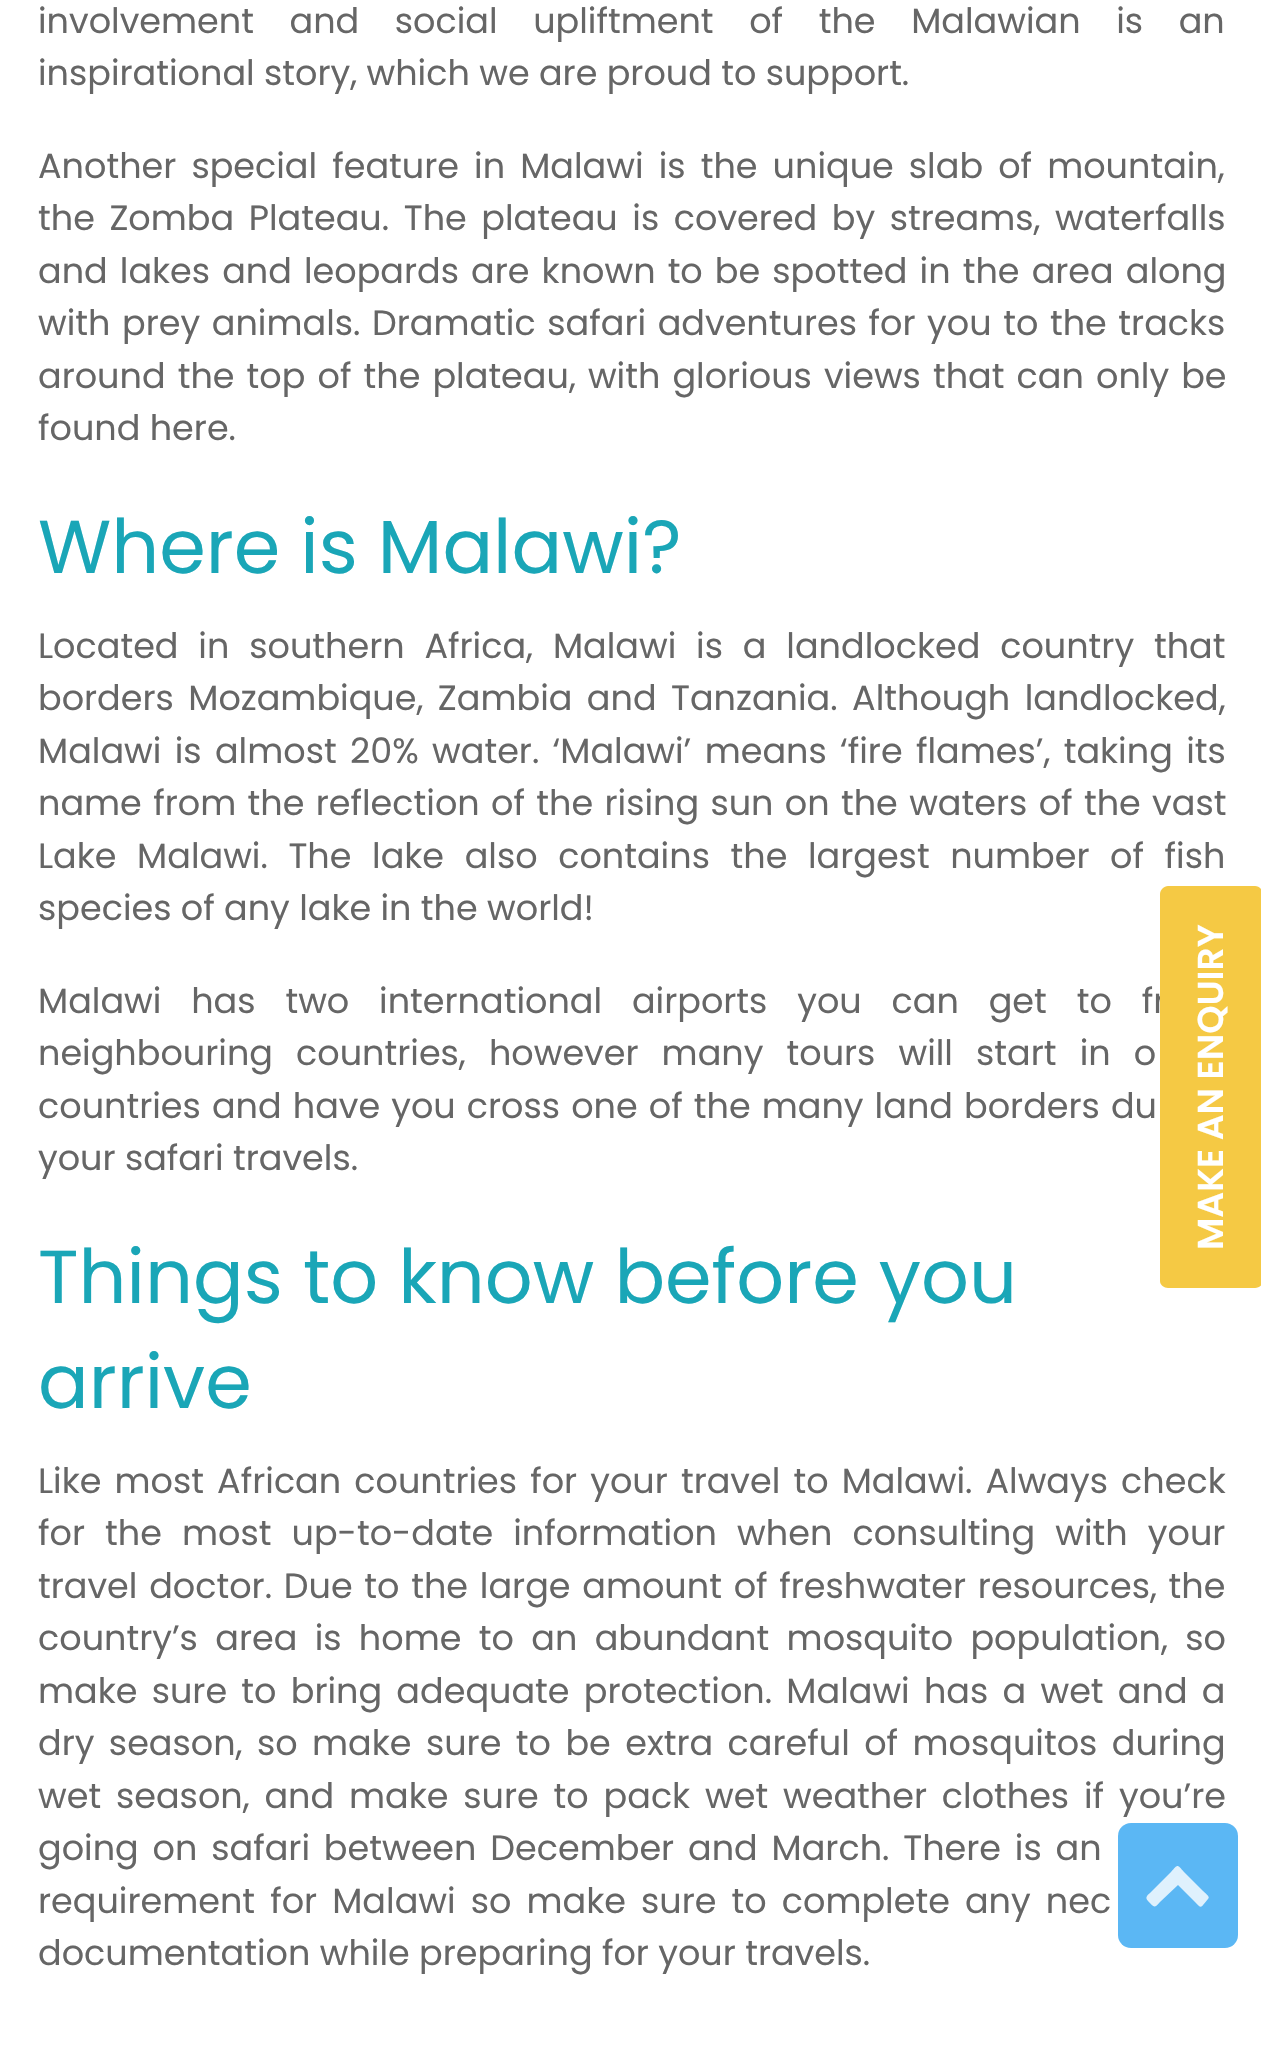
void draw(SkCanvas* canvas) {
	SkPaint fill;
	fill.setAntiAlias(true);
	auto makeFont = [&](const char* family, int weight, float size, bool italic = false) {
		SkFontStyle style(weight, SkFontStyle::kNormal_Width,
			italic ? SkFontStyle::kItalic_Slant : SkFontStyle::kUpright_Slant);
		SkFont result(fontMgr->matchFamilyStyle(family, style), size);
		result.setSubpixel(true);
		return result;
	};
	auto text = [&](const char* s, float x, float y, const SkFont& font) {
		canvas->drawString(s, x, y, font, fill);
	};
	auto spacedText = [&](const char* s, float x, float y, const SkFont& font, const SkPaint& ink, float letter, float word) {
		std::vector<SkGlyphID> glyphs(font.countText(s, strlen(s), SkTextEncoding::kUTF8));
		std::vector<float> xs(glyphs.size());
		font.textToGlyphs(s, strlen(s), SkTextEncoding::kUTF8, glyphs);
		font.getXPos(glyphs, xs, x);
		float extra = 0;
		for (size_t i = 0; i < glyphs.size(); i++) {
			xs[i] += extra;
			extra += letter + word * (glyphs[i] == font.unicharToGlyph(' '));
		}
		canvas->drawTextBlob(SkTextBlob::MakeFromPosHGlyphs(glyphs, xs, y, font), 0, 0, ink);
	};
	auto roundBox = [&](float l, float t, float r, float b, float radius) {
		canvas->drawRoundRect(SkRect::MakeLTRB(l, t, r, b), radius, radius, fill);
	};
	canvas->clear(0xFFFFFFFF);
	fill.setColor(0xCC32A5F1);
	roundBox(1118, 1823, 1238, 1948, 13);
	fill.setColor(0xCCFFFFFF);
	canvas->drawPath(SkPathBuilder().moveTo(1208, 1899).cubicTo(1201, 1907, 1202, 1910, 1195, 1902).lineTo(1178, 1885).lineTo(1160, 1902).cubicTo(1154, 1909, 1154, 1907, 1148, 1901).cubicTo(1144, 1897, 1148, 1895, 1152, 1891).lineTo(1171, 1872).cubicTo(1178, 1864, 1177, 1864, 1184, 1872).lineTo(1203, 1891).cubicTo(1204, 1892, 1211, 1897, 1208, 1899).close().detach(), fill);
	auto font1 = makeFont("Poppins", 400, 35);
	fill.setColor(0xFF666666);
	spacedText("involvement and social upliftment of the Malawian is an", 38, 33, font1, fill, 0, 26.25f);
	text("inspirational story, which we are proud to support.", 38, 85, font1);
	spacedText("Another special feature in Malawi is the unique slab of mountain,", 38, 178, font1, fill, 0, 5.75f);
	spacedText("the Zomba Plateau. The plateau is covered by streams, waterfalls", 38, 230, font1, fill, 0, 5.25f);
	spacedText("and lakes and leopards are known to be spotted in the area along", 38, 283, font1, fill, 0, 2.75f);
	spacedText("with prey animals. Dramatic safari adventures for you to the tracks", 38, 335, font1, fill, 0, 2.25f);
	spacedText("around the top of the plateau, with glorious views that can only be", 38, 388, font1, fill, 0, 2.75f);
	text("found here.", 38, 440, font1);
	auto font2 = makeFont("Poppins", 400, 75);
	fill.setColor(0xFF1AA6B7);
	text("Where is Malawi?", 38, 573, font2);
	fill.setColor(0xFF666666);
	spacedText("Located in southern Africa, Malawi is a landlocked country that", 38, 658, font1, fill, 0, 10.5f);
	spacedText("borders Mozambique, Zambia and Tanzania. Although landlocked,", 38, 710, font1, fill, 0, 5.1f);
	spacedText("Malawi is almost 20% water. ‘Malawi’ means ‘fire flames’, taking its", 38, 763, font1, fill, 0, 4);
	spacedText("name from the reflection of the rising sun on the waters of the vast", 38, 815, font1, fill, 0, 2);
	spacedText("Lake Malawi. The lake also contains the largest number of fish", 38, 868, font1, fill, 0, 11.25f);
	text("species of any lake in the world!", 38, 920, font1);
	spacedText("Malawi has two international airports you can get to fr", 38, 1013, font1, fill, 0, 20.5f);
	spacedText("neighbouring countries, however many tours will start in o", 38, 1065, font1, fill, 0, 13.75f);
	spacedText("countries and have you cross one of the many land borders du", 38, 1118, font1, fill, 0, 1.75f);
	text("your safari travels.", 38, 1170, font1);
	fill.setColor(0xFF1AA6B7);
	text("Things to know before you", 38, 1303, font2);
	text("arrive", 38, 1408, font2);
	fill.setColor(0xFF666666);
	spacedText("Like most African countries for your travel to Malawi. Always check", 38, 1493, font1, fill, 0, 3.75f);
	spacedText("for the most up-to-date information when consulting with your", 38, 1545, font1, fill, 0, 10.75f);
	spacedText("travel doctor. Due to the large amount of freshwater resources, the", 38, 1598, font1, fill, 0, 2.4f);
	spacedText("country’s area is home to an abundant mosquito population, so", 38, 1650, font1, fill, 0, 8);
	spacedText("make sure to bring adequate protection. Malawi has a wet and a", 38, 1703, font1, fill, 0, 4.9f);
	spacedText("dry season, so make sure to be extra careful of mosquitos during", 38, 1755, font1, fill, 0, 5.1f);
	spacedText("wet season, and make sure to pack wet weather clothes if you’re", 38, 1808, font1, fill, 0, 5.5f);
	spacedText("going on safari between December and March. There is an", 38, 1860, font1, fill, 0, 4.5f);
	spacedText("requirement for Malawi so make sure to complete any nec", 38, 1913, font1, fill, 0, 5.75f);
	text("documentation while preparing for your travels.", 38, 1965, font1);
	fill.setColor(0xFFF5C944);
	canvas->drawPath(SkPathBuilder().moveTo(1160, 1281).lineTo(1160, 894).cubicTo(1160, 890, 1164, 886, 1168, 886).lineTo(1255, 886).cubicTo(1259, 886, 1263, 890, 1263, 894).lineTo(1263, 1281).cubicTo(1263, 1285, 1259, 1288, 1255, 1288).lineTo(1168, 1288).cubicTo(1164, 1288, 1160, 1285, 1160, 1281).close().detach(), fill);
	auto font3 = makeFont("Poppins", 600, 36);
	fill.setColor(0xFFFFFFFF);
	canvas->save();
	canvas->rotate(-90, 1223, 1250);
	text("MAKE AN ENQUIRY", 1223, 1250, font3);
	canvas->restore();
}
